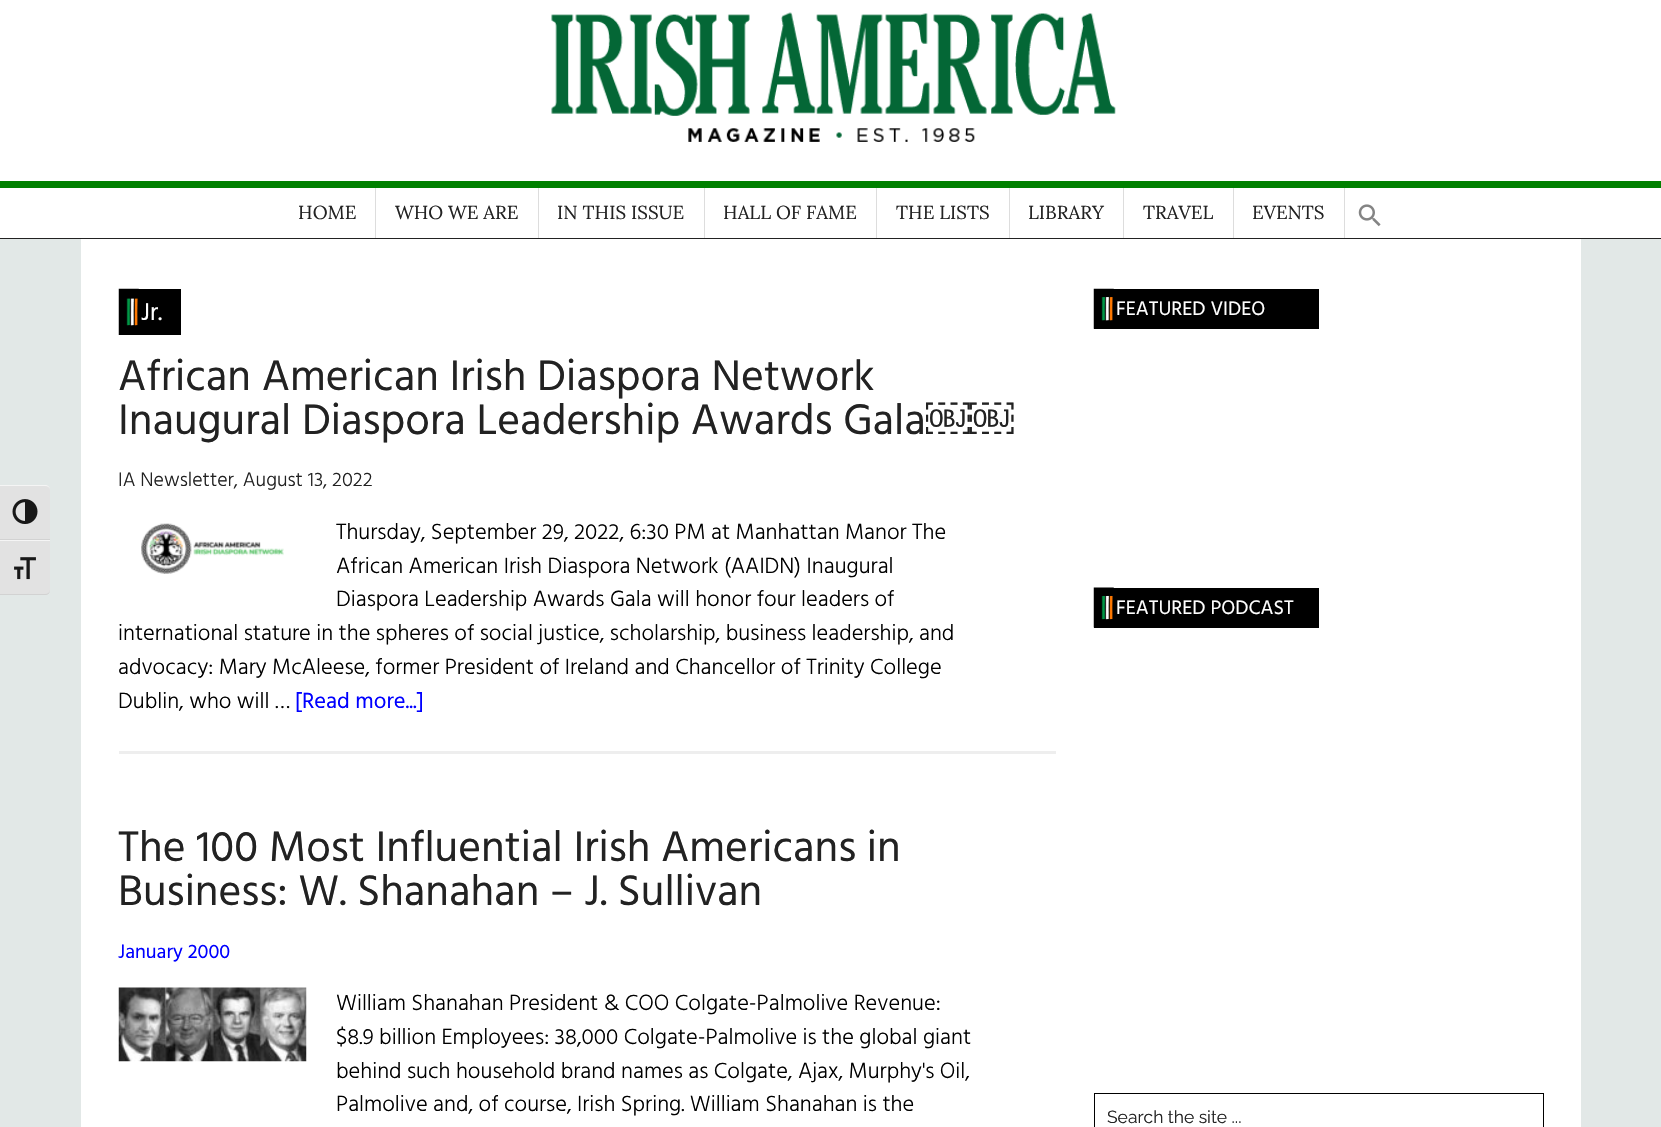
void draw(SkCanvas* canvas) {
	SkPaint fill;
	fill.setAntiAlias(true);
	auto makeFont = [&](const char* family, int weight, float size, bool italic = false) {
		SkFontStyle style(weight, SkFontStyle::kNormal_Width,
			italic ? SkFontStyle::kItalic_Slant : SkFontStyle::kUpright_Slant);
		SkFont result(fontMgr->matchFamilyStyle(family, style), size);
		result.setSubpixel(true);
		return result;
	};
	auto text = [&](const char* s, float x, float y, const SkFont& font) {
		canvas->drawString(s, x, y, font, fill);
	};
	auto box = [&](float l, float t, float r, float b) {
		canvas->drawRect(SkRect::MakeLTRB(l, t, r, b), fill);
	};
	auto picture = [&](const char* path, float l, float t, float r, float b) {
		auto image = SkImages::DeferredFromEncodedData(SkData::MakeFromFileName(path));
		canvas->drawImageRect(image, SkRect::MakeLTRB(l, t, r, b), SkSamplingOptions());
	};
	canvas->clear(0xFFE2E8E7);
	fill.setColor(0xFFE2E2E2);
	canvas->drawPath(SkPathBuilder().moveTo(0, 485).lineTo(45, 485).cubicTo(48, 485, 50, 487, 50, 490).lineTo(50, 540).lineTo(0, 540).close().detach(), fill);
	fill.setColor(0xFFF5F5F5);
	canvas->drawPath(SkPathBuilder().moveTo(0, 485).lineTo(0, 486).lineTo(45, 486).cubicTo(48, 486, 50, 488, 50, 490).cubicTo(50, 487, 48, 485, 45, 485).close().detach(), fill);
	fill.setColor(0xFFD2D2D2);
	box(0, 539, 50, 540);
	picture("image0.png", 12, 499, 38, 524);
	fill.setColor(0xFFE2E2E2);
	canvas->drawPath(SkPathBuilder().moveTo(0, 540).lineTo(50, 540).lineTo(50, 590).cubicTo(50, 593, 48, 595, 45, 595).lineTo(0, 595).close().detach(), fill);
	fill.setColor(0xFFF5F5F5);
	box(0, 540, 50, 541);
	fill.setColor(0xFFD2D2D2);
	canvas->drawPath(SkPathBuilder().moveTo(0, 594).lineTo(0, 595).lineTo(45, 595).cubicTo(48, 595, 50, 593, 50, 590).cubicTo(50, 592, 48, 594, 45, 594).close().detach(), fill);
	picture("image1.png", 14, 557, 36, 580);
	fill.setColor(0xFFFFFFFF);
	box(0, 0, 1661, 181);
	picture("image2.png", 551, 12, 1116, 142);
	fill.setColor(0xFF008000);
	box(0, 181, 1661, 188);
	fill.setColor(0xFF222222);
	box(0, 238, 1661, 239);
	fill.setColor(0xFFFFFFFF);
	box(0, 188, 1661, 238);
	fill.setColor(0xFFDDDDDD);
	box(375, 188, 376, 238);
	box(538, 188, 539, 238);
	box(704, 188, 705, 238);
	box(876, 188, 877, 238);
	box(1009, 188, 1010, 238);
	box(1123, 188, 1124, 238);
	box(1233, 188, 1234, 238);
	box(1344, 188, 1345, 238);
	picture("image3.png", 1358, 204, 1381, 227);
	fill.setColor(0xFFFFFFFF);
	box(81, 239, 1581, 1127);
	fill.setColor(0xFF000000);
	box(138, 289, 181, 335);
	picture("image4.png", 118, 288, 139, 335);
	fill.setColor(0xFFEEEEEE);
	box(119, 751, 1056, 754);
	picture("image5.png", 141, 523, 284, 574);
	picture("image6.png", 118, 987, 307, 1062);
	fill.setColor(0xFF000000);
	box(1094, 289, 1319, 329);
	picture("image7.png", 1093, 288, 1114, 329);
	box(1094, 588, 1319, 628);
	picture("image8.png", 1093, 587, 1114, 628);
	fill.setStyle(SkPaint::kStroke_Style);
	fill.setStrokeWidth(1);
	canvas->drawRect(SkRect::MakeLTRB(1094.5f, 1093.5f, 1543.5f, 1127.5f), fill);
	auto font1 = makeFont("Lora", 400, 18.75f);
	fill.setStyle(SkPaint::kFill_Style);
	fill.setColor(0xFF222222);
	text("HOME", 298, 219, font1);
	text("WHO WE ARE", 395, 219, font1);
	text("IN THIS ISSUE", 557, 219, font1);
	text("HALL OF FAME", 723, 219, font1);
	text("THE LISTS", 896, 219, font1);
	text("LIBRARY", 1028, 219, font1);
	text("TRAVEL", 1143, 219, font1);
	text("EVENTS", 1252, 219, font1);
	auto font2 = makeFont("Hind", 400, 25);
	fill.setColor(0xFFFFFFFF);
	text("Jr.", 141, 320, font2);
	auto font3 = makeFont("Hind", 400, 43.75f);
	fill.setColor(0xFF222222);
	text("African American Irish Diaspora Network", 118, 390, font3);
	text("Inaugural Diaspora Leadership Awards Gala", 118, 434, font3);
	auto font4 = makeFont("Liberation Sans", 400, 43.75f);
	text("￼￼", 926, 434, font4);
	auto font5 = makeFont("Hind", 300, 20);
	text("IA Newsletter, August 13, 2022", 118, 486, font5);
	auto font6 = makeFont("Hind", 300, 22.5f);
	fill.setColor(0xFF000000);
	text("Thursday, September 29, 2022, 6:30 PM at Manhattan Manor The", 336, 539, font6);
	text("African American Irish Diaspora Network (AAIDN) Inaugural", 336, 573, font6);
	text("Diaspora Leadership Awards Gala will honor four leaders of", 336, 606, font6);
	text("international stature in the spheres of social justice, scholarship, business leadership, and", 118, 640, font6);
	text("advocacy: Mary McAleese, former President of Ireland and Chancellor of Trinity College", 118, 674, font6);
	text("Dublin, who will …", 118, 708, font6);
	auto font7 = makeFont("Hind", 400, 22.5f);
	fill.setColor(0xFF0000FF);
	text("[Read more...]", 295, 708, font7);
	fill.setColor(0xFF222222);
	text("The 100 Most Influential Irish Americans in", 118, 861, font3);
	text("Business: W. Shanahan – J. Sullivan", 118, 905, font3);
	auto font8 = makeFont("Hind", 400, 20);
	fill.setColor(0xFF0000FF);
	text("January 2000", 118, 958, font8);
	fill.setColor(0xFF000000);
	text("William Shanahan President & COO Colgate-Palmolive Revenue:", 336, 1010, font6);
	text("$8.9 billion Employees: 38,000 Colgate-Palmolive is the global giant", 336, 1044, font6);
	text("behind such household brand names as Colgate, Ajax, Murphy's Oil,", 336, 1078, font6);
	text("Palmolive and, of course, Irish Spring. William Shanahan is the", 336, 1111, font6);
	fill.setColor(0xFFFFFFFF);
	text("FEATURED VIDEO", 1116, 315, font8);
	text("FEATURED PODCAST", 1116, 614, font8);
	auto font9 = makeFont("Raleway", 400, 17.5f);
	fill.setColor(0xFF222222);
	text("Search the site ...", 1107, 1123, font9);
}
